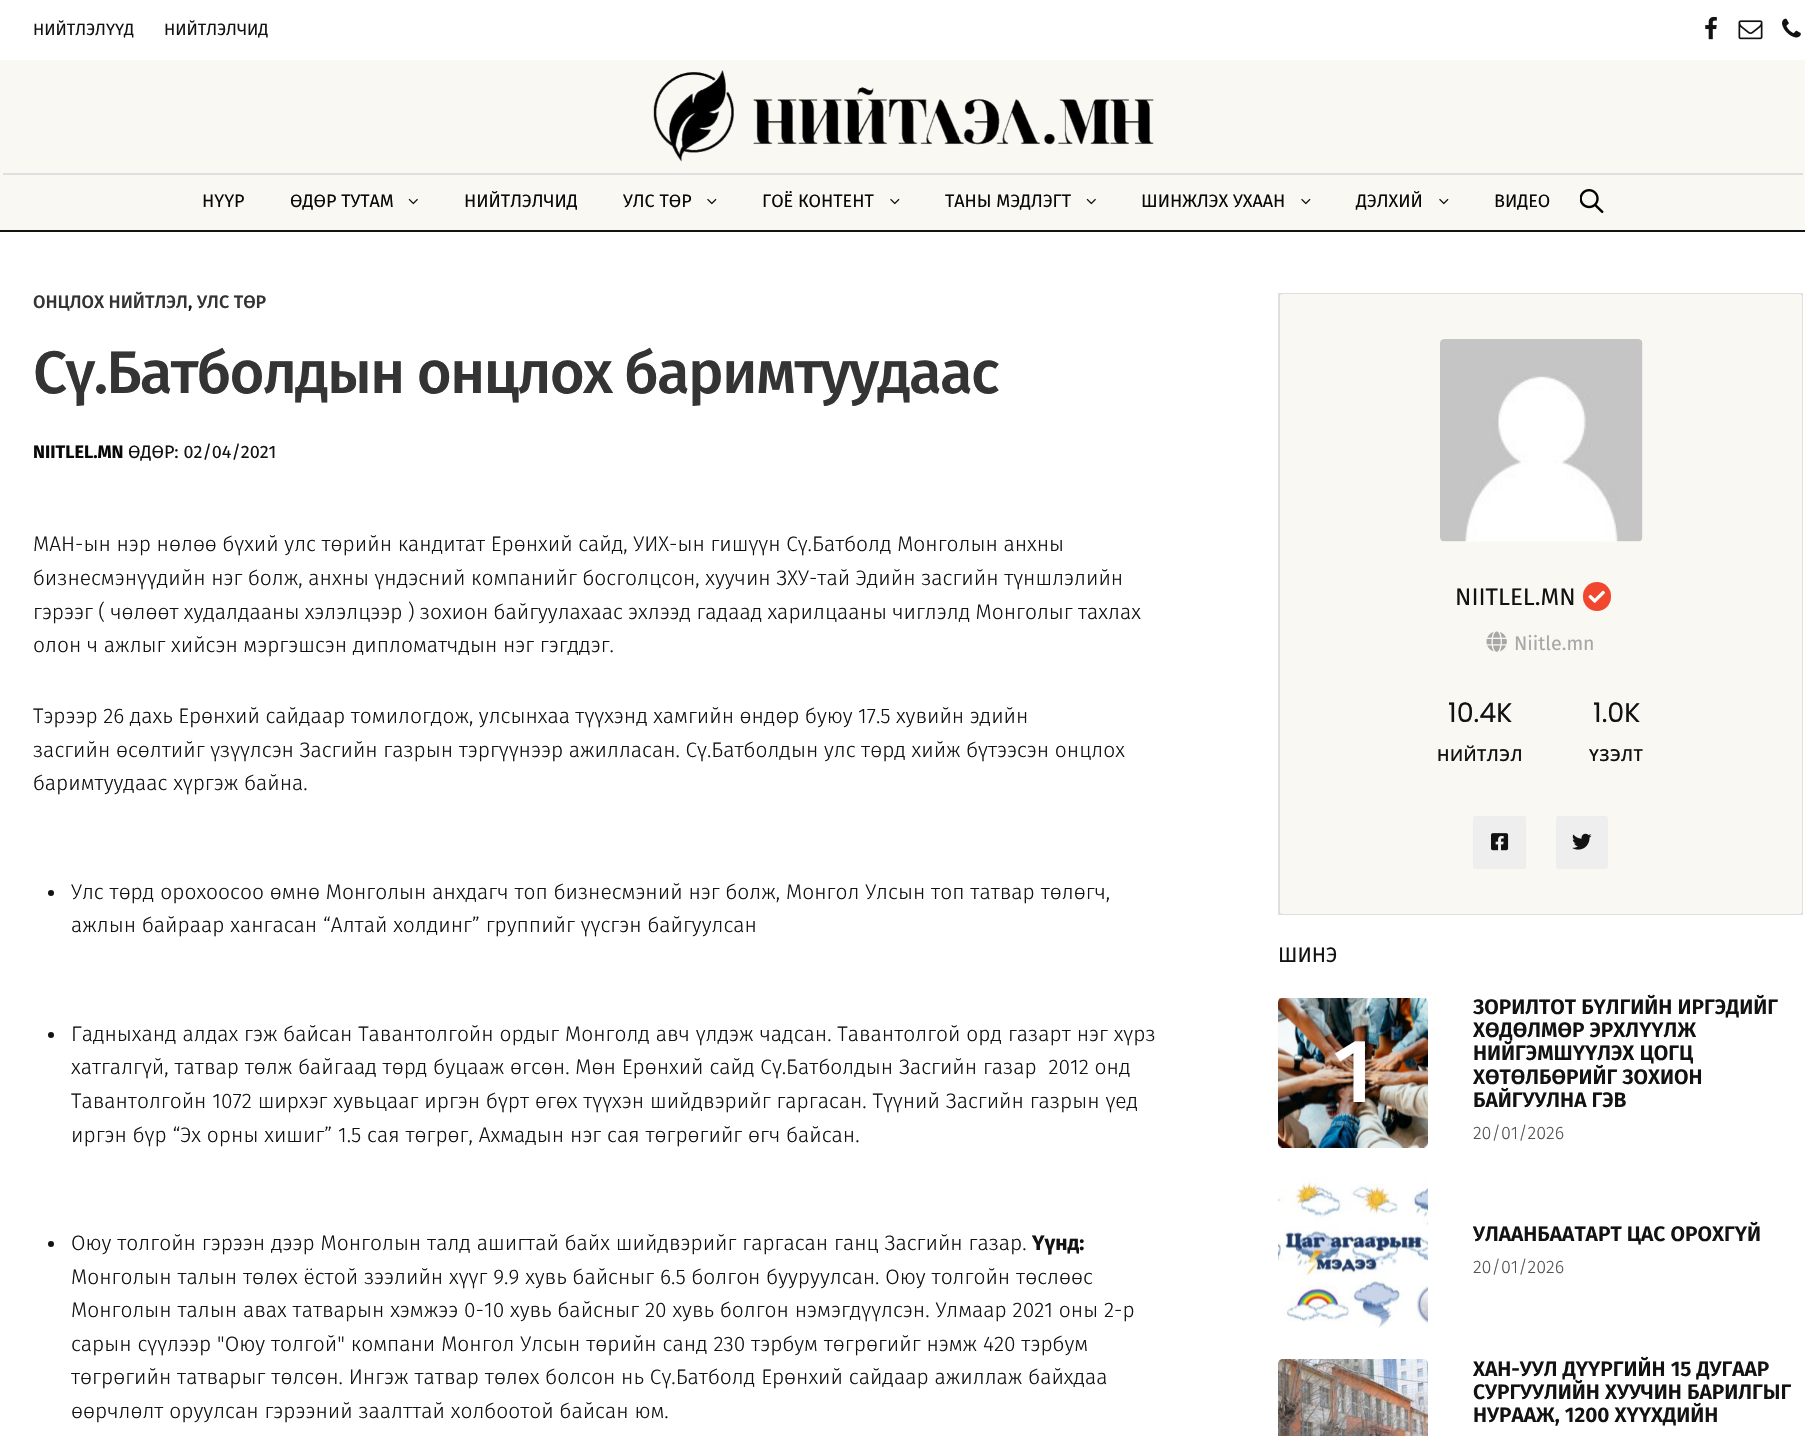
void draw(SkCanvas* canvas) {
	SkPaint fill;
	fill.setAntiAlias(true);
	auto makeFont = [&](const char* family, int weight, float size, bool italic = false) {
		SkFontStyle style(weight, SkFontStyle::kNormal_Width,
			italic ? SkFontStyle::kItalic_Slant : SkFontStyle::kUpright_Slant);
		SkFont result(fontMgr->matchFamilyStyle(family, style), size);
		result.setSubpixel(true);
		return result;
	};
	auto text = [&](const char* s, float x, float y, const SkFont& font) {
		canvas->drawString(s, x, y, font, fill);
	};
	auto spacedText = [&](const char* s, float x, float y, const SkFont& font, const SkPaint& ink, float letter, float word) {
		std::vector<SkGlyphID> glyphs(font.countText(s, strlen(s), SkTextEncoding::kUTF8));
		std::vector<float> xs(glyphs.size());
		font.textToGlyphs(s, strlen(s), SkTextEncoding::kUTF8, glyphs);
		font.getXPos(glyphs, xs, x);
		float extra = 0;
		for (size_t i = 0; i < glyphs.size(); i++) {
			xs[i] += extra;
			extra += letter + word * (glyphs[i] == font.unicharToGlyph(' '));
		}
		canvas->drawTextBlob(SkTextBlob::MakeFromPosHGlyphs(glyphs, xs, y, font), 0, 0, ink);
	};
	auto box = [&](float l, float t, float r, float b) {
		canvas->drawRect(SkRect::MakeLTRB(l, t, r, b), fill);
	};
	auto roundBox = [&](float l, float t, float r, float b, float radius) {
		canvas->drawRoundRect(SkRect::MakeLTRB(l, t, r, b), radius, radius, fill);
	};
	auto picture = [&](const char* path, float l, float t, float r, float b) {
		auto image = SkImages::DeferredFromEncodedData(SkData::MakeFromFileName(path));
		canvas->drawImageRect(image, SkRect::MakeLTRB(l, t, r, b), SkSamplingOptions());
	};
	canvas->clear(0xFFFFFFFF);
	picture("image0.png", 1705, 16, 1717, 40);
	picture("image1.png", 1738, 20, 1763, 40);
	picture("image2.png", 1782, 18, 1801, 38);
	fill.setColor(0xFFF9F8F3);
	box(0, 60, 1805, 230);
	fill.setColor(0xFF121212);
	box(0, 230, 1805, 232);
	picture("image3.png", 653, 70, 1154, 162);
	fill.setColor(0xFFDFDFDF);
	box(3, 173, 1803, 175);
	picture("image4.png", 408, 198, 418, 205);
	picture("image5.png", 707, 198, 717, 205);
	picture("image5.png", 890, 198, 900, 205);
	picture("image4.png", 1086, 198, 1096, 205);
	picture("image5.png", 1301, 198, 1311, 205);
	picture("image5.png", 1439, 198, 1449, 205);
	picture("image6.png", 1580, 189, 1604, 213);
	fill.setColor(0xFF121212);
	canvas->drawCircle(51, 893, 3, fill);
	canvas->drawCircle(51, 1035, 3, fill);
	canvas->drawCircle(51, 1244, 3, fill);
	fill.setStyle(SkPaint::kStroke_Style);
	fill.setStrokeWidth(2);
	fill.setColor(0xFFDFDFDF);
	canvas->drawRect(SkRect::MakeLTRB(1279, 294, 1802, 914), fill);
	fill.setStyle(SkPaint::kFill_Style);
	fill.setColor(0xFFF9F8F3);
	roundBox(1280, 294, 1802, 914, 3);
	fill.setColor(0xFFFBFAF7);
	roundBox(1440, 339, 1643, 542, 5);
	picture("image7.png", 1440, 339, 1643, 542);
	fill.setColor(0xFFF1472E);
	roundBox(1583, 582, 1611, 611, 14);
	picture("image8.png", 1588, 590, 1605, 603);
	picture("image9.png", 1486, 631, 1507, 652);
	fill.setColor(0xFFEEEEEE);
	roundBox(1473, 816, 1526, 869, 3);
	picture("image10.png", 1491, 833, 1509, 851);
	roundBox(1556, 816, 1608, 869, 3);
	picture("image11.png", 1572, 833, 1592, 850);
	picture("image12.png", 1278, 998, 1428, 1148);
	picture("image13.png", 1278, 1178, 1428, 1328);
	picture("image14.png", 1278, 1359, 1428, 1436);
	auto font1 = makeFont("Fira Sans", 400, 16.5f);
	fill.setColor(0xFF121212);
	text("НИЙТЛЭЛҮҮД", 33, 35, font1);
	text("НИЙТЛЭЛЧИД", 164, 35, font1);
	auto font2 = makeFont("Fira Sans", 400, 18);
	fill.setColor(0xFF090909);
	text("НҮҮР", 202, 207, font2);
	text("ӨДӨР ТУТАМ", 290, 207, font2);
	text("НИЙТЛЭЛЧИД", 464, 207, font2);
	text("УЛС ТӨР", 623, 207, font2);
	text("ГОЁ КОНТЕНТ", 762, 207, font2);
	text("ТАНЫ МЭДЛЭГТ", 945, 207, font2);
	text("ШИНЖЛЭХ УХААН", 1141, 207, font2);
	text("ДЭЛХИЙ", 1356, 207, font2);
	text("ВИДЕО", 1494, 207, font2);
	auto font3 = makeFont("Fira Sans", 500, 18);
	fill.setColor(0xFF343434);
	text("ОНЦЛОХ НИЙТЛЭЛ", 33, 308, font3);
	fill.setColor(0xFF121212);
	text(",", 188, 308, font3);
	fill.setColor(0xFF343434);
	text("УЛС ТӨР", 197, 308, font3);
	auto font4 = makeFont("Fira Sans", 500, 60);
	spacedText("Сү.Батболдын онцлох баримтуудаас", 33, 393, font4, fill, -1.8f, 0);
	auto font5 = makeFont("Fira Sans", 700, 18);
	fill.setColor(0xFF090909);
	text("NIITLEL.MN", 33, 458, font5);
	fill.setColor(0xFF121212);
	text("ӨДӨР: 02/04/2021", 128, 458, font2);
	auto font6 = makeFont("Fira Sans", 300, 21);
	spacedText("МАН-ын нэр нөлөө бүхий улс төрийн кандитат Ерөнхий сайд, УИХ-ын гишүүн Сү.Батболд Монголын анхны", 33, 551, font6, fill, 0, -0.25f);
	spacedText("бизнесмэнүүдийн нэг болж, анхны үндэсний компанийг босголцсон, хуучин ЗХУ-тай Эдийн засгийн түншлэлийн", 33, 585, font6, fill, 0, -0.25f);
	spacedText("гэрээг ( чөлөөт худалдааны хэлэлцээр ) зохион байгуулахаас эхлээд гадаад харилцааны чиглэлд Монголыг тахлах", 33, 619, font6, fill, 0, -0.6f);
	spacedText("олон ч ажлыг хийсэн мэргэшсэн дипломатчдын нэг гэгддэг.", 33, 652, font6, fill, 0, -0.25f);
	spacedText("Тэрээр 26 дахь Ерөнхий сайдаар томилогдож, улсынхаа түүхэнд хамгийн өндөр буюу 17.5 хувийн эдийн", 33, 723, font6, fill, 0, -0.4f);
	spacedText("засгийн өсөлтийг үзүүлсэн Засгийн газрын тэргүүнээр ажилласан. Сү.Батболдын улс төрд хийж бүтээсэн онцлох", 33, 757, font6, fill, 0, -0.25f);
	text("баримтуудаас хүргэж байна.", 33, 790, font6);
	text("Улс төрд орохоосоо өмнө Монголын анхдагч топ бизнесмэний нэг болж, Монгол Улсын топ татвар төлөгч,", 71, 899, font6);
	text("ажлын байраар хангасан “Алтай холдинг” группийг үүсгэн байгуулсан", 71, 932, font6);
	text("Гадныханд алдах гэж байсан Тавантолгойн ордыг Монголд авч үлдэж чадсан. Тавантолгой орд газарт нэг хүрз", 71, 1041, font6);
	text("хатгалгүй, татвар төлж байгаад төрд буцааж өгсөн. Мөн Ерөнхий сайд Сү.Батболдын Засгийн газар  2012 онд", 71, 1074, font6);
	text("Тавантолгойн 1072 ширхэг хувьцааг иргэн бүрт өгөх түүхэн шийдвэрийг гаргасан. Түүний Засгийн газрын үед", 71, 1108, font6);
	text("иргэн бүр “Эх орны хишиг” 1.5 сая төгрөг, Ахмадын нэг сая төгрөгийг өгч байсан.", 71, 1142, font6);
	text("Оюу толгойн гэрээн дээр Монголын талд ашигтай байх шийдвэрийг гаргасан ганц Засгийн газар.", 71, 1250, font6);
	auto font7 = makeFont("Fira Sans", 700, 21);
	text("Үүнд:", 1032, 1250, font7);
	text("Монголын талын төлөх ёстой зээлийн хүүг 9.9 хувь байсныг 6.5 болгон бууруулсан. Оюу толгойн төслөөс", 71, 1284, font6);
	text("Монголын талын авах татварын хэмжээ 0-10 хувь байсныг 20 хувь болгон нэмэгдүүлсэн. Улмаар 2021 оны 2-р", 71, 1317, font6);
	text("сарын сүүлээр \"Оюу толгой\" компани Монгол Улсын төрийн санд 230 тэрбум төгрөгийг нэмж 420 тэрбум", 71, 1351, font6);
	text("төгрөгийн татварыг төлсөн. Ингэж татвар төлөх болсон нь Сү.Батболд Ерөнхий сайдаар ажиллаж байхдаа", 71, 1384, font6);
	text("өөрчлөлт оруулсан гэрээний заалттай холбоотой байсан юм.", 71, 1418, font6);
	auto font8 = makeFont("Fira Sans", 400, 24);
	text("NIITLEL.MN", 1455, 605, font8);
	auto font9 = makeFont("Fira Sans", 400, 19.5f);
	fill.setColor(0xFFA9A6A6);
	text("Niitle.mn", 1514, 650, font9);
	auto font10 = makeFont("Poppins", 400, 27);
	fill.setColor(0xFF121212);
	text("10.4K", 1448, 722, font10);
	auto font11 = makeFont("Open Sans", 600, 16.5f);
	spacedText("НИЙТЛЭЛ", 1437, 761, font11, fill, 0.5f, 0);
	text("1.0K", 1593, 722, font10);
	spacedText("ҮЗЭЛТ", 1589, 761, font11, fill, 0.5f, 0);
	auto font12 = makeFont("Fira Sans", 400, 21);
	text("ШИНЭ", 1278, 962, font12);
	auto font13 = makeFont("Fira Sans", 500, 90);
	fill.setColor(0xFFFFFFFF);
	text("1", 1333, 1102, font13);
	auto font14 = makeFont("Fira Sans", 600, 21);
	fill.setColor(0xFF121212);
	text("ЗОРИЛТОТ БҮЛГИЙН ИРГЭДИЙГ", 1473, 1014, font14);
	text("ХӨДӨЛМӨР ЭРХЛҮҮЛЖ", 1473, 1037, font14);
	text("НИЙГЭМШҮҮЛЭХ ЦОГЦ", 1473, 1060, font14);
	text("ХӨТӨЛБӨРИЙГ ЗОХИОН", 1473, 1084, font14);
	text("БАЙГУУЛНА ГЭВ", 1473, 1107, font14);
	auto font15 = makeFont("Fira Sans", 300, 18);
	fill.setColor(0xFF535353);
	text("20/01/2026", 1473, 1139, font15);
	fill.setColor(0xFF121212);
	text("УЛААНБААТАРТ ЦАС ОРОХГҮЙ", 1473, 1241, font14);
	fill.setColor(0xFF535353);
	text("20/01/2026", 1473, 1273, font15);
	fill.setColor(0xFF121212);
	text("ХАН-УУЛ ДҮҮРГИЙН 15 ДУГААР", 1473, 1376, font14);
	text("СУРГУУЛИЙН ХУУЧИН БАРИЛГЫГ", 1473, 1399, font14);
	text("НУРААЖ, 1200 ХҮҮХДИЙН", 1473, 1422, font14);
}
